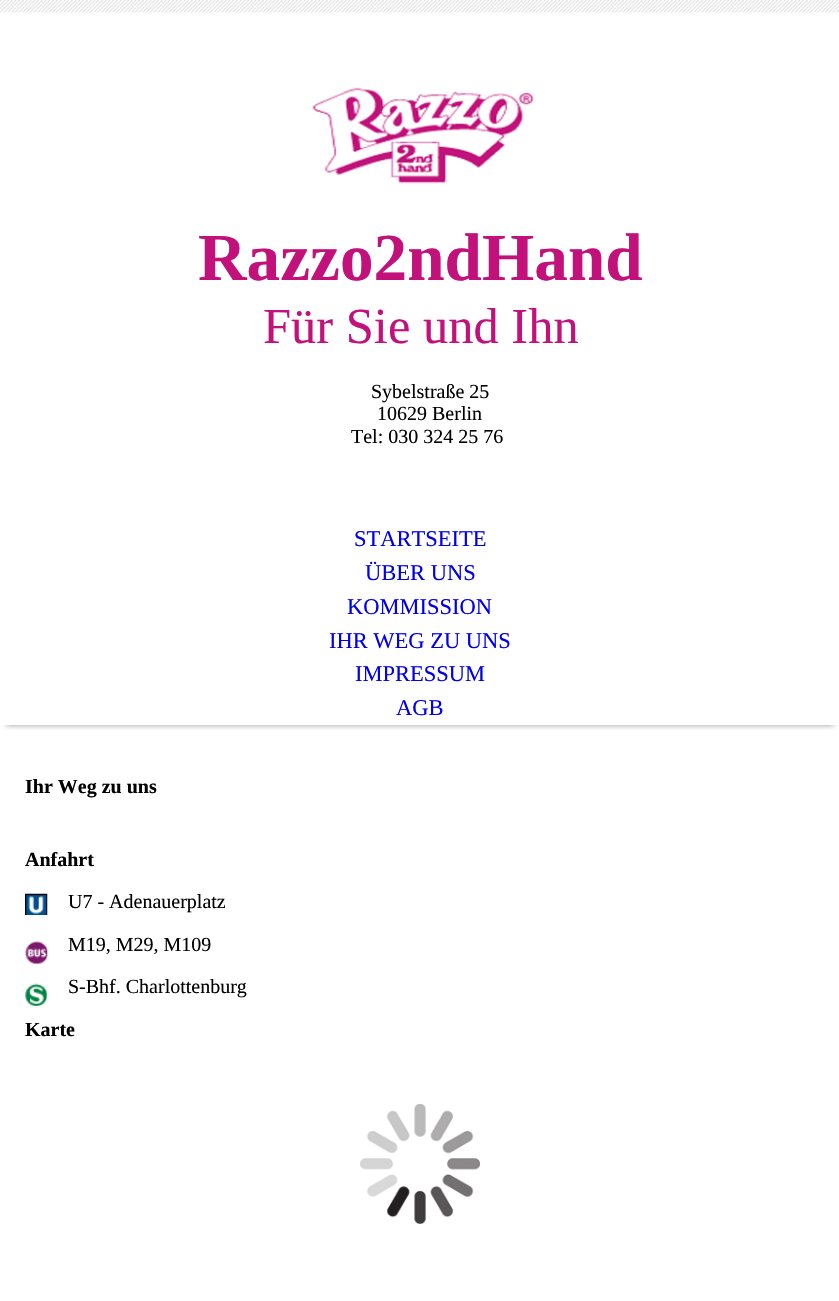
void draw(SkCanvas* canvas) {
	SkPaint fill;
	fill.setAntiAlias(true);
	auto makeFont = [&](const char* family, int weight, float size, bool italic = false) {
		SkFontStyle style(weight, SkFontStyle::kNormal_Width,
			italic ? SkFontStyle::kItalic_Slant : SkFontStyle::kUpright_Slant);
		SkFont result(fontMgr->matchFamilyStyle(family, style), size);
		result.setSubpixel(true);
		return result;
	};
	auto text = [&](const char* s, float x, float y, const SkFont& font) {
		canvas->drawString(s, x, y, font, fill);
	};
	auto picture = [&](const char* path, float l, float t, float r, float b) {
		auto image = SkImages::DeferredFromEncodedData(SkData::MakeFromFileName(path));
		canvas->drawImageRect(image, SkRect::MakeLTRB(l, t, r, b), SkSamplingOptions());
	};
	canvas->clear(0xFFFFFFFF);
	picture("image0.png", 0, 0, 839, 13);
	picture("image1.png", 312, 87, 534, 184);
	canvas->save();
	canvas->clipRect(SkRect::MakeLTRB(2, 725, 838, 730));
	fill.setColor(0x66000000);
	fill.setMaskFilter(SkMaskFilter::MakeBlur(kNormal_SkBlurStyle, 3));
	canvas->drawRect(SkRect::MakeLTRB(6, 510, 834, 725), fill);
	fill.setMaskFilter(nullptr);
	canvas->restore();
	picture("image2.png", 25, 893, 48, 915);
	picture("image3.png", 25, 941, 48, 964);
	picture("image4.png", 25, 983, 48, 1007);
	picture("image5.png", 360, 1103, 480, 1224);
	auto font1 = makeFont("Liberation Serif", 700, 67.25f);
	fill.setColor(0xFFC2117B);
	text("Razzo2ndHand", 198, 280, font1);
	auto font2 = makeFont("Liberation Serif", 400, 50.5f);
	text("Für Sie und Ihn", 263, 343, font2);
	auto font3 = makeFont("Liberation Serif", 400, 20);
	fill.setColor(0xFF000000);
	text("Sybelstraße 25", 371, 398, font3);
	text("10629 Berlin", 377, 420, font3);
	text("Tel: 030 324 25 76", 351, 443, font3);
	auto font4 = makeFont("Liberation Serif", 400, 22.5f);
	fill.setColor(0xFF0000EE);
	text("STARTSEITE", 354, 546, font4);
	text("ÜBER UNS", 365, 580, font4);
	text("KOMMISSION", 347, 614, font4);
	text("IHR WEG ZU UNS", 329, 648, font4);
	text("IMPRESSUM", 355, 681, font4);
	text("AGB", 396, 715, font4);
	auto font5 = makeFont("Liberation Serif", 700, 20);
	fill.setColor(0xFF000000);
	text("Ihr Weg zu uns", 25, 793, font5);
	text("Anfahrt", 25, 866, font5);
	text("U7 - Adenauerplatz", 68, 908, font3);
	text("M19, M29, M109", 68, 951, font3);
	text("S-Bhf. Charlottenburg", 68, 993, font3);
	text("Karte", 25, 1036, font5);
}
